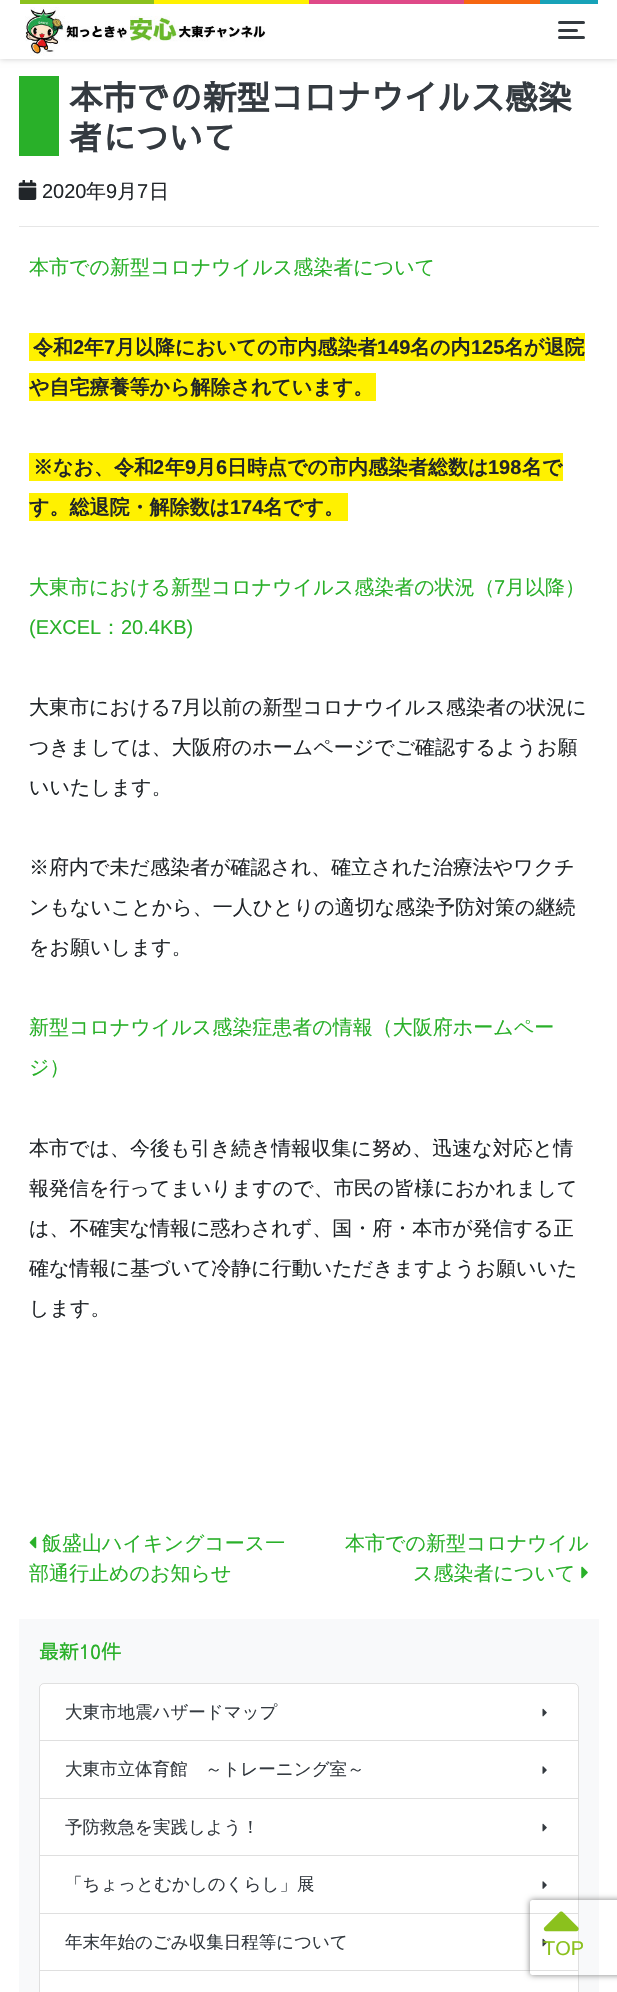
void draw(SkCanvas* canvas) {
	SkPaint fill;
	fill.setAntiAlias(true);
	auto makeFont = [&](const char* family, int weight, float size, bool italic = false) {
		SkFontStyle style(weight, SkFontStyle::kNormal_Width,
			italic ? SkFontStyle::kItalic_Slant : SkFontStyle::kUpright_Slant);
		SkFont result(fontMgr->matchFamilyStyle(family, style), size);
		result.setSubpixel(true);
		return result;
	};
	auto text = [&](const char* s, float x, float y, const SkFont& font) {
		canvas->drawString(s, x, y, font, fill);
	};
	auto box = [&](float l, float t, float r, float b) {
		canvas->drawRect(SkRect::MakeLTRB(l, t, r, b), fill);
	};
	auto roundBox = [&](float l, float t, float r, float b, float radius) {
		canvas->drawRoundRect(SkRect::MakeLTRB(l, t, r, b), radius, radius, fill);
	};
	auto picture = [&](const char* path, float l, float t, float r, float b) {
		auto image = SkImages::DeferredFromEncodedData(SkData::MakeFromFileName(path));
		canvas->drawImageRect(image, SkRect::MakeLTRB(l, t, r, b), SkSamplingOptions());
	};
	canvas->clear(0xFFFFFFFF);
	fill.setColor(0x33000000);
	fill.setMaskFilter(SkMaskFilter::MakeBlur(kNormal_SkBlurStyle, 3));
	canvas->drawRect(SkRect::MakeLTRB(0, 0, 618, 59), fill);
	fill.setMaskFilter(nullptr);
	fill.setColor(0xFFFFFFFF);
	box(0, 0, 617, 59);
	fill.setColor(0xFF8BC11D);
	box(20, 0, 154, 4);
	fill.setColor(0xFFFFF100);
	box(154, 0, 309, 4);
	fill.setColor(0xFFDF4988);
	box(309, 0, 464, 4);
	fill.setColor(0xFFF66611);
	box(464, 0, 540, 4);
	fill.setColor(0xFF17A2B8);
	box(540, 0, 598, 4);
	picture("image0.png", 25, 7, 266, 56);
	fill.setColor(0xFF343A40);
	roundBox(558, 21, 585, 24, 1.5f);
	roundBox(558, 29, 578, 32, 1.5f);
	roundBox(558, 36, 585, 39, 1.5f);
	fill.setColor(0xFF29B029);
	box(19, 76, 59, 156);
	picture("image1.png", 18, 180, 37, 200);
	fill.setColor(0xFFE6E6E6);
	box(19, 226, 599, 227);
	fill.setColor(0xFFFFF100);
	box(29, 333, 585, 361);
	box(29, 373, 376, 401);
	box(29, 453, 563, 481);
	box(29, 493, 348, 521);
	picture("image2.png", 29, 1536, 37, 1549);
	picture("image3.png", 581, 1566, 588, 1579);
	fill.setColor(0xFFF8F9FA);
	box(19, 1619, 599, 1992);
	fill.setColor(0xFFFFFFFF);
	canvas->drawPath(SkPathBuilder().moveTo(44, 1683).lineTo(574, 1683).cubicTo(577, 1683, 579, 1685, 579, 1688).lineTo(579, 1741).lineTo(39, 1741).lineTo(39, 1688).cubicTo(39, 1685, 41, 1683, 44, 1683).close().detach(), fill);
	fill.setStyle(SkPaint::kStroke_Style);
	fill.setStrokeWidth(1);
	fill.setColor(0x1F000000);
	canvas->drawPath(SkPathBuilder().moveTo(44, 1683.5f).lineTo(574, 1683.5f).cubicTo(576.5f, 1683.5f, 578.5f, 1685.5f, 578.5f, 1688).lineTo(578.5f, 1740.5f).lineTo(39.5f, 1740.5f).lineTo(39.5f, 1688).cubicTo(39.5f, 1685.5f, 41.5f, 1683.5f, 44, 1683.5f).close().detach(), fill);
	picture("image4.png", 542, 1708, 547, 1717);
	fill.setStyle(SkPaint::kFill_Style);
	fill.setColor(0xFFFFFFFF);
	canvas->drawRect(SkRect::MakeLTRB(39.5f, 1740.5f, 578.5f, 1798.5f), fill);
	fill.setStyle(SkPaint::kStroke_Style);
	fill.setColor(0xFFDFDFDF);
	canvas->drawRect(SkRect::MakeLTRB(39.5f, 1740.5f, 578.5f, 1798.5f), fill);
	picture("image5.png", 542, 1766, 547, 1774);
	fill.setStyle(SkPaint::kFill_Style);
	fill.setColor(0xFFFFFFFF);
	canvas->drawRect(SkRect::MakeLTRB(39.5f, 1798.5f, 578.5f, 1855.5f), fill);
	fill.setStyle(SkPaint::kStroke_Style);
	fill.setColor(0xFFDFDFDF);
	canvas->drawRect(SkRect::MakeLTRB(39.5f, 1798.5f, 578.5f, 1855.5f), fill);
	picture("image4.png", 542, 1823, 547, 1832);
	fill.setStyle(SkPaint::kFill_Style);
	fill.setColor(0xFFFFFFFF);
	canvas->drawRect(SkRect::MakeLTRB(39.5f, 1855.5f, 578.5f, 1913.5f), fill);
	fill.setStyle(SkPaint::kStroke_Style);
	fill.setColor(0xFFDFDFDF);
	canvas->drawRect(SkRect::MakeLTRB(39.5f, 1855.5f, 578.5f, 1913.5f), fill);
	picture("image5.png", 542, 1881, 547, 1889);
	fill.setStyle(SkPaint::kFill_Style);
	fill.setColor(0xFFFFFFFF);
	canvas->drawRect(SkRect::MakeLTRB(39.5f, 1913.5f, 578.5f, 1970.5f), fill);
	fill.setStyle(SkPaint::kStroke_Style);
	fill.setColor(0xFFDFDFDF);
	canvas->drawRect(SkRect::MakeLTRB(39.5f, 1913.5f, 578.5f, 1970.5f), fill);
	picture("image4.png", 542, 1938, 547, 1947);
	fill.setStyle(SkPaint::kFill_Style);
	fill.setColor(0xFFFFFFFF);
	canvas->drawRect(SkRect::MakeLTRB(39.5f, 1970.5f, 578.5f, 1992.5f), fill);
	fill.setStyle(SkPaint::kStroke_Style);
	fill.setColor(0xFFDFDFDF);
	canvas->drawRect(SkRect::MakeLTRB(39.5f, 1970.5f, 578.5f, 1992.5f), fill);
	canvas->save();
	canvas->clipPath(SkPathBuilder(SkPathFillType::kEvenOdd).moveTo(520, 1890).lineTo(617, 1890).lineTo(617, 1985).lineTo(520, 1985).close().moveTo(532.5f, 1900).lineTo(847.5f, 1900).cubicTo(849, 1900, 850, 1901, 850, 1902.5f).lineTo(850, 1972.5f).cubicTo(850, 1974, 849, 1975, 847.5f, 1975).lineTo(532.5f, 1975).cubicTo(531, 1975, 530, 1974, 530, 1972.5f).lineTo(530, 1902.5f).cubicTo(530, 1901, 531, 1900, 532.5f, 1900).close().detach(), true);
	fill.setStyle(SkPaint::kFill_Style);
	fill.setColor(0xFF808080);
	fill.setMaskFilter(SkMaskFilter::MakeBlur(kNormal_SkBlurStyle, 3));
	canvas->drawRoundRect(SkRect::MakeLTRB(530, 1900, 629, 1975), 2.5f, 2.5f, fill);
	fill.setMaskFilter(nullptr);
	canvas->restore();
	picture("image6.png", 543, 1911, 579, 1932);
	auto font1 = makeFont("Sawarabi Gothic", 700, 33.5f);
	fill.setColor(0xFF343A40);
	text("本市での新型コロナウイルス感染", 69, 110, font1);
	text("者について", 69, 150, font1);
	auto font2 = makeFont("Liberation Sans", 400, 20);
	fill.setColor(0xFF212529);
	text("2020", 42, 198, font2);
	auto font3 = makeFont("WenQuanYi Zen Hei", 500, 20);
	text("年", 86, 198, font3);
	text("9", 106, 198, font2);
	text("月", 117, 198, font3);
	text("7", 137, 198, font2);
	text("日", 149, 198, font3);
	fill.setColor(0xFF29B029);
	text("本市での新型コロナウイルス感染者について", 29, 274, font3);
	auto font4 = makeFont("WenQuanYi Zen Hei", 700, 20);
	fill.setColor(0xFF212529);
	text("令和", 33, 354, font4);
	auto font5 = makeFont("Liberation Sans", 700, 20);
	text("2", 73, 354, font5);
	text("年", 84, 354, font4);
	text("7", 104, 354, font5);
	text("月以降においての市内感染者", 115, 354, font4);
	text("149", 377, 354, font5);
	text("名の内", 410, 354, font4);
	text("125", 471, 354, font5);
	text("名が退院", 504, 354, font4);
	text("や自宅療養等から解除されています。", 29, 394, font4);
	text("※なお、令和", 33, 474, font4);
	text("2", 153, 474, font5);
	text("年", 165, 474, font4);
	text("9", 185, 474, font5);
	text("月", 196, 474, font4);
	text("6", 216, 474, font5);
	text("日時点での市内感染者総数は", 227, 474, font4);
	text("198", 488, 474, font5);
	text("名で", 522, 474, font4);
	text("す。総退院・解除数は", 29, 514, font4);
	text("174", 230, 514, font5);
	text("名です。", 263, 514, font4);
	fill.setColor(0xFF29B029);
	text("大東市における新型コロナウイルス感染者の状況（", 29, 594, font3);
	text("7", 494, 594, font2);
	text("月以降）", 505, 594, font3);
	text("(EXCEL", 29, 634, font2);
	text("：", 101, 634, font3);
	text("20.4KB)", 121, 634, font2);
	fill.setColor(0xFF212529);
	text("大東市における", 29, 714, font3);
	text("7", 171, 714, font2);
	text("月以前の新型コロナウイルス感染者の状況に", 182, 714, font3);
	text("つきましては、大阪府のホームページでご確認するようお願", 29, 754, font3);
	text("いいたします。", 29, 794, font3);
	text("※府内で未だ感染者が確認され、確立された治療法やワクチ", 29, 874, font3);
	text("ンもないことから、一人ひとりの適切な感染予防対策の継続", 29, 914, font3);
	text("をお願いします。", 29, 954, font3);
	fill.setColor(0xFF29B029);
	text("新型コロナウイルス感染症患者の情報（大阪府ホームペー", 29, 1034, font3);
	text("ジ）", 29, 1074, font3);
	fill.setColor(0xFF212529);
	text("本市では、今後も引き続き情報収集に努め、迅速な対応と情", 29, 1155, font3);
	text("報発信を行ってまいりますので、市民の皆様におかれまして", 29, 1195, font3);
	text("は、不確実な情報に惑わされず、国・府・本市が発信する正", 29, 1235, font3);
	text("確な情報に基づいて冷静に行動いただきますようお願いいた", 29, 1275, font3);
	text("します。", 29, 1315, font3);
	fill.setColor(0xFF29B029);
	text("飯盛山ハイキングコース一", 42, 1550, font3);
	text("部通行止めのお知らせ", 29, 1580, font3);
	text("本市での新型コロナウイル", 345, 1550, font3);
	text("ス感染者について", 413, 1580, font3);
	auto font6 = makeFont("Sawarabi Gothic", 400, 20);
	text("最新10件", 39, 1659, font6);
	auto font7 = makeFont("WenQuanYi Zen Hei", 500, 17.5f);
	fill.setColor(0xFF343A40);
	text("大東市地震ハザードマップ", 65, 1718, font7);
	text("大東市立体育館　～トレーニング室～", 65, 1775, font7);
	text("予防救急を実践しよう！", 65, 1833, font7);
	text("「ちょっとむかしのくらし」展", 65, 1890, font7);
	text("年末年始のごみ収集日程等について", 65, 1948, font7);
	fill.setColor(0xFF8BC11D);
	text("TOP", 543, 1955, font2);
}
